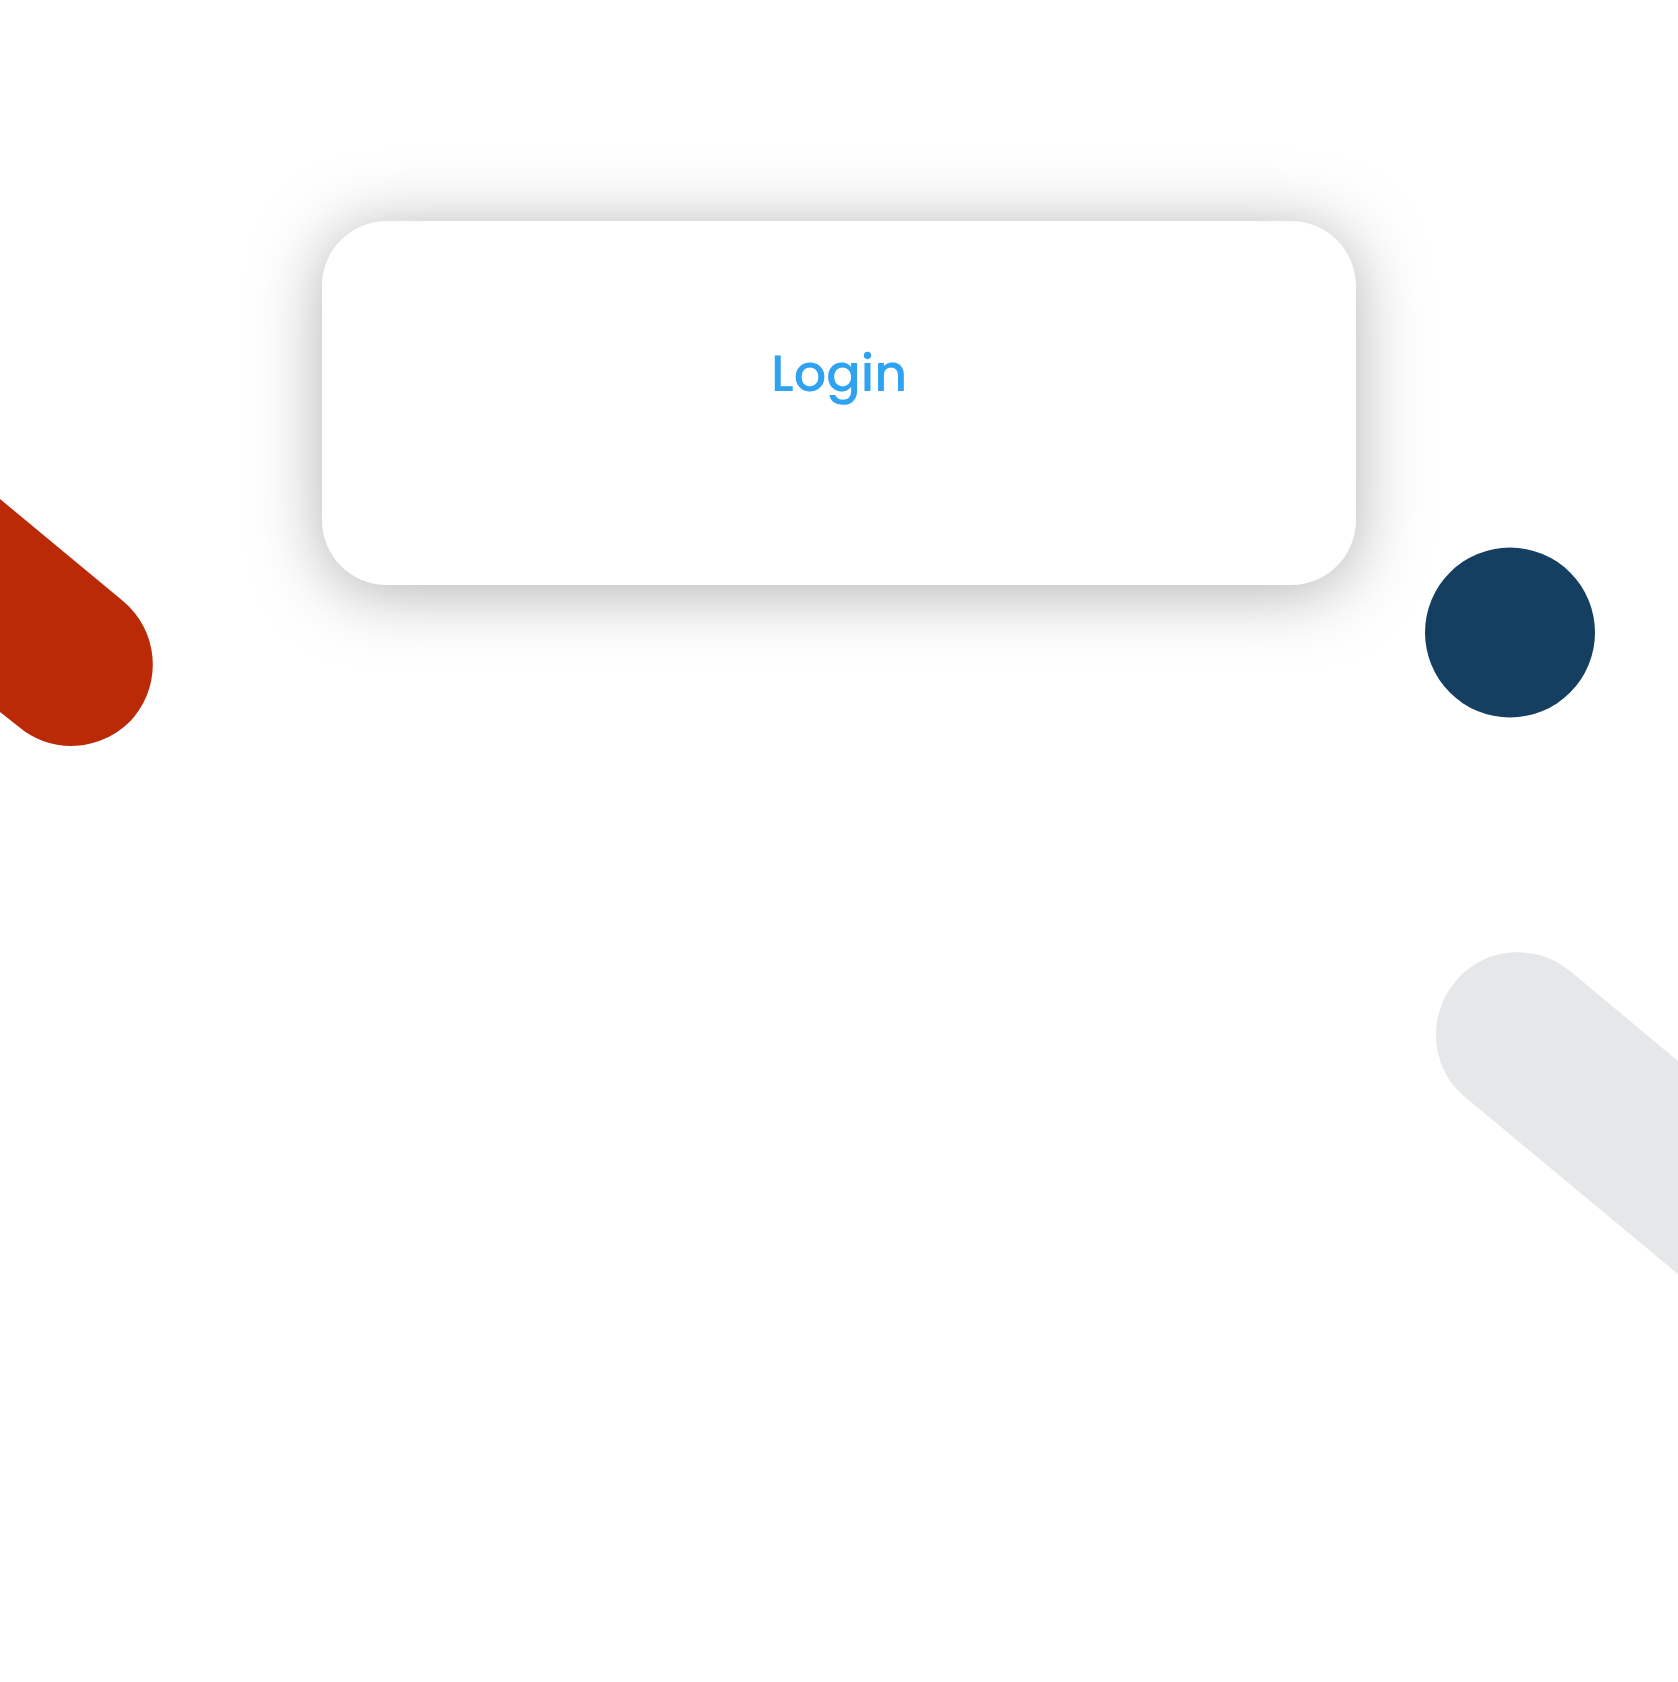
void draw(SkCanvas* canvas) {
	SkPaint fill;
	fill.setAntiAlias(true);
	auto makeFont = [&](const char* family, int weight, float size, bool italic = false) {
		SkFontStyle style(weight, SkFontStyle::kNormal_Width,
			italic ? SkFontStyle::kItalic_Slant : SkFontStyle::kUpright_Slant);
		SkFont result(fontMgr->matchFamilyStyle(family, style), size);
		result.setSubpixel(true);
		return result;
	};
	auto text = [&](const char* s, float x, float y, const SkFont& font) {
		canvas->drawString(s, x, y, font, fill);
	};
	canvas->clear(0xFFFFFFFF);
	fill.setColor(0xFFE6E7E8);
	canvas->drawPath(SkPathBuilder(SkPathFillType::kEvenOdd).moveTo(1678, 1061).lineTo(1678, 1274).lineTo(1465, 1097).cubicTo(1431, 1069, 1426, 1017, 1455, 982).cubicTo(1483, 947, 1535, 942, 1570, 971).close().detach(), fill);
	fill.setColor(0xFFBA2A06);
	canvas->drawPath(SkPathBuilder(SkPathFillType::kEvenOdd).moveTo(0, 499).lineTo(0, 712).lineTo(19, 727).cubicTo(53, 756, 105, 751, 134, 717).cubicTo(163, 682, 158, 630, 123, 601).close().detach(), fill);
	fill.setColor(0xFF153F61);
	canvas->drawCircle(1510, 632.5f, 85, fill);
	canvas->save();
	canvas->clipPath(SkPathBuilder(SkPathFillType::kEvenOdd).moveTo(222, 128).lineTo(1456, 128).lineTo(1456, 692).lineTo(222, 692).close().moveTo(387, 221).lineTo(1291, 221).cubicTo(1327, 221, 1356, 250, 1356, 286).lineTo(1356, 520).cubicTo(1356, 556, 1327, 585, 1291, 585).lineTo(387, 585).cubicTo(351, 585, 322, 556, 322, 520).lineTo(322, 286).cubicTo(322, 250, 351, 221, 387, 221).close().detach(), true);
	fill.setColor(0x4D000000);
	fill.setMaskFilter(SkMaskFilter::MakeBlur(kNormal_SkBlurStyle, 33));
	canvas->drawRoundRect(SkRect::MakeLTRB(322, 228, 1356, 592), 65, 65, fill);
	fill.setMaskFilter(nullptr);
	canvas->restore();
	auto font1 = makeFont("Poppins", 500, 51);
	fill.setColor(0xFF2EA3F2);
	text("Login", 771, 391, font1);
}
